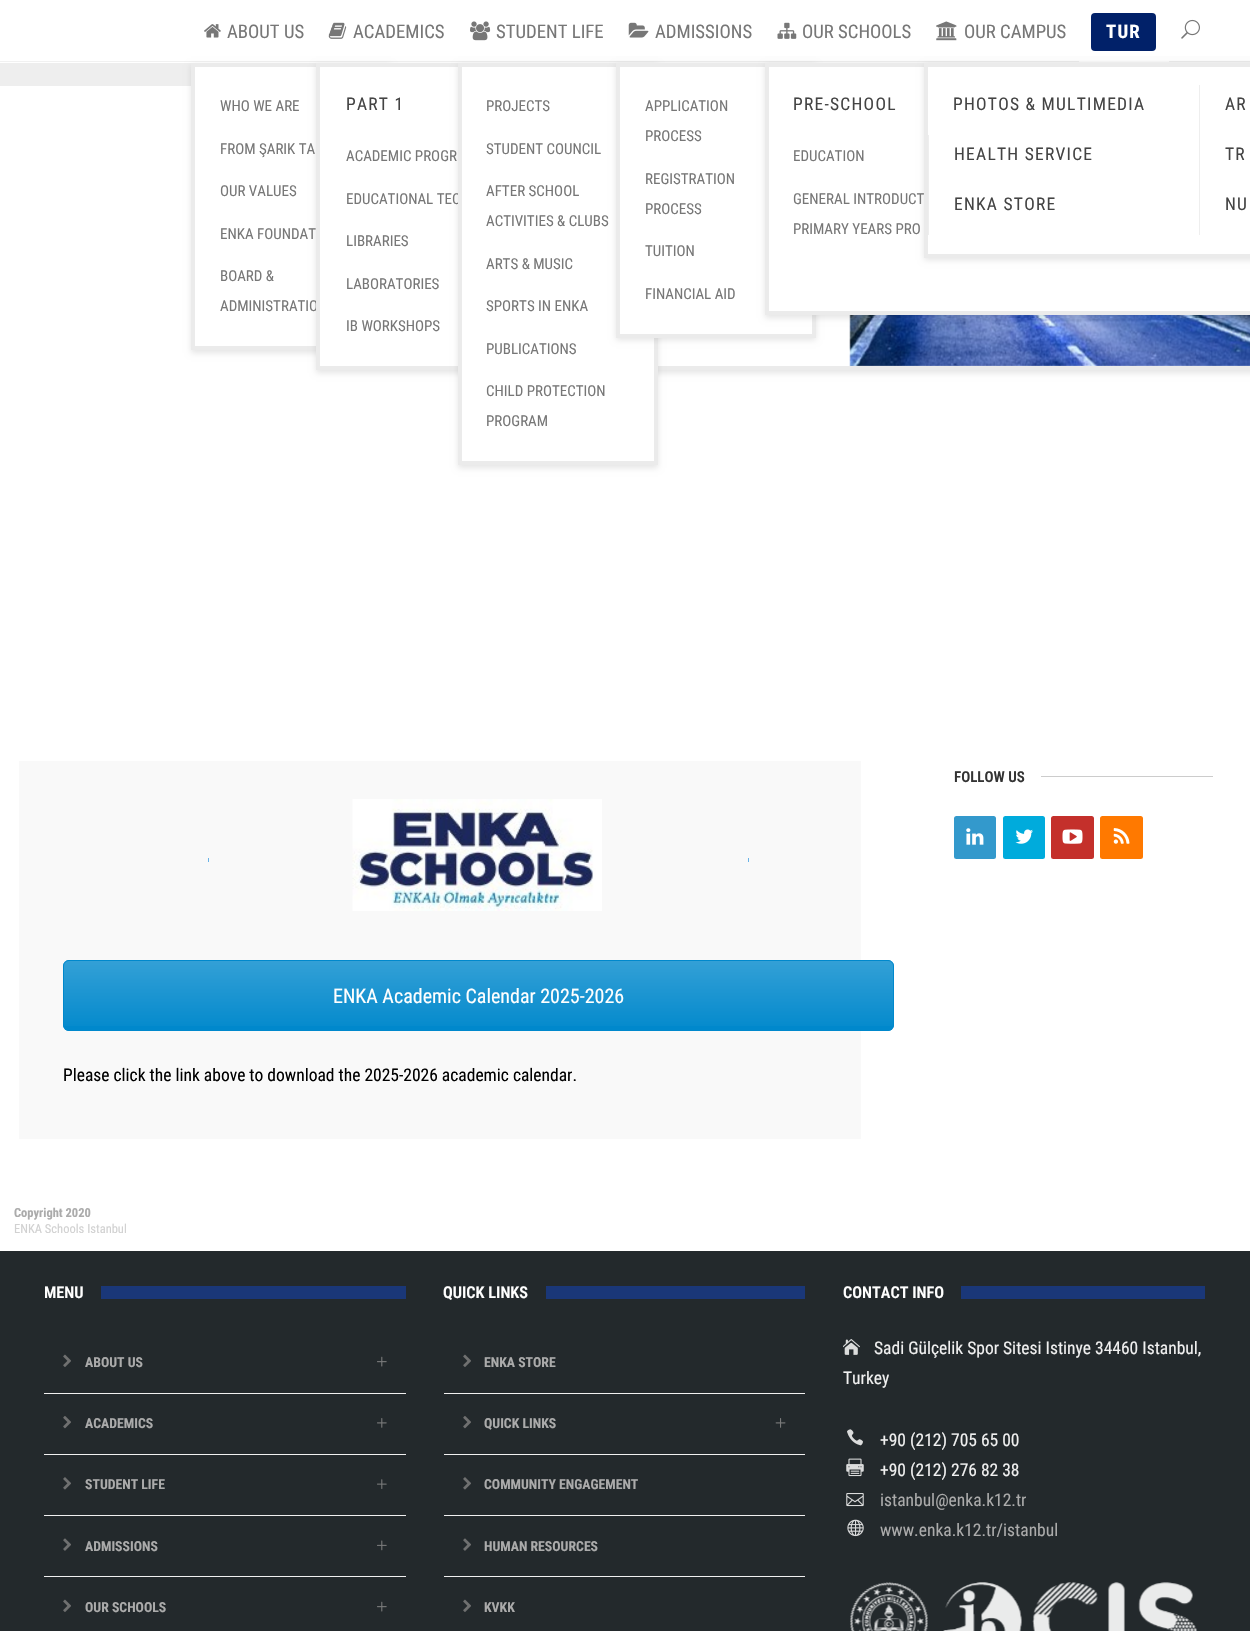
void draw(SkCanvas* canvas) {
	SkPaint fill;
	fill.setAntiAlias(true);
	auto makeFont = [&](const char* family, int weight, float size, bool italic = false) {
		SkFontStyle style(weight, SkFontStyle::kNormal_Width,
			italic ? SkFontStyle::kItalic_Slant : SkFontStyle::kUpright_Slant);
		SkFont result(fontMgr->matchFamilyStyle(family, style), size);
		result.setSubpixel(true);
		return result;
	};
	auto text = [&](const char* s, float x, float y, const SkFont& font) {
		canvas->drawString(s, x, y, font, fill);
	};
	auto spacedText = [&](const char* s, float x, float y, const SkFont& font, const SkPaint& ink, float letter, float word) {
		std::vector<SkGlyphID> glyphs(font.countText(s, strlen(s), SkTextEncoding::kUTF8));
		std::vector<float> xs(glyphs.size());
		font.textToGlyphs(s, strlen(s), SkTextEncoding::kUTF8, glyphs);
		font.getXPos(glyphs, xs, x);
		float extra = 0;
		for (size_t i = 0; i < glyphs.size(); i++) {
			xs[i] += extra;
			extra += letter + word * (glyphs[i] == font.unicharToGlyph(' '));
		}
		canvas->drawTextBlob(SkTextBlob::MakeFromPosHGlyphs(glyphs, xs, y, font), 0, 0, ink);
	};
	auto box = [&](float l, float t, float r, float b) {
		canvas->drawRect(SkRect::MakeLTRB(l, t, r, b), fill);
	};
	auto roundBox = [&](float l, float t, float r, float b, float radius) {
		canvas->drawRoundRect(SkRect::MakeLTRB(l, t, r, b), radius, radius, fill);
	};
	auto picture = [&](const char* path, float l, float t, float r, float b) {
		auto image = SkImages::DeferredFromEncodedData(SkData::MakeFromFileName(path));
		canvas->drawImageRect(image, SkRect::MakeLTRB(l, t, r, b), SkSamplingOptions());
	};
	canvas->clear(0xFFFFFFFF);
	fill.setColor(0xFFF1F1F1);
	box(0, 61, 1250, 62);
	picture("image0.png", 204, 24, 221, 38);
	fill.setColor(0xFFEEEEEE);
	box(0, 63, 191, 86);
	fill.setColor(0x1A000000);
	fill.setMaskFilter(SkMaskFilter::MakeBlur(kNormal_SkBlurStyle, 3));
	canvas->drawRect(SkRect::MakeLTRB(191, 65, 391, 353), fill);
	fill.setMaskFilter(nullptr);
	fill.setColor(0xFFFFFFFF);
	box(195, 67, 316, 346);
	fill.setStyle(SkPaint::kStroke_Style);
	fill.setStrokeWidth(4);
	fill.setColor(0xFFEBEBEB);
	canvas->drawRect(SkRect::MakeLTRB(193, 65, 389, 348), fill);
	picture("image1.png", 328, 22, 347, 39);
	fill.setStyle(SkPaint::kFill_Style);
	fill.setColor(0xFFFFFFFF);
	box(1079, 61, 1169, 62);
	fill.setColor(0x1A000000);
	fill.setMaskFilter(SkMaskFilter::MakeBlur(kNormal_SkBlurStyle, 3));
	canvas->drawRect(SkRect::MakeLTRB(316, 65, 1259, 373), fill);
	fill.setMaskFilter(nullptr);
	fill.setColor(0xFFFFFFFF);
	box(320, 67, 1250, 366);
	picture("image2.png", 849, 315, 1250, 366);
	picture("image3.png", 470, 21, 491, 41);
	picture("image4.png", 628, 22, 649, 38);
	picture("image5.png", 777, 22, 797, 39);
	picture("image6.png", 1181, 19, 1200, 39);
	picture("image7.png", 936, 21, 957, 41);
	fill.setColor(0xFF012169);
	roundBox(1091, 13, 1156, 51, 4);
	fill.setColor(0xFFCCCCCC);
	box(1041, 776, 1213, 777);
	fill.setColor(0xFF3399CC);
	roundBox(954, 816, 996, 859, 2.5f);
	picture("image8.png", 966, 828, 984, 845);
	fill.setColor(0xFF00ABDC);
	roundBox(1003, 816, 1045, 859, 2.5f);
	picture("image9.png", 1015, 829, 1033, 844);
	fill.setColor(0xFFC4302B);
	roundBox(1051, 816, 1094, 859, 2.5f);
	picture("image10.png", 1062, 829, 1083, 844);
	fill.setColor(0xFFFF7900);
	roundBox(1100, 816, 1143, 859, 2.5f);
	picture("image11.png", 1113, 828, 1130, 844);
	fill.setColor(0xFFF9F9F9);
	box(19, 761, 861, 1139);
	fill.setColor(0xFF69B3E7);
	box(208, 858, 209, 862);
	picture("image12.png", 352, 799, 602, 911);
	box(748, 858, 749, 862);
	fill.setColor(0xFF0088CC);
	roundBox(63, 960, 894, 1031, 6);
	canvas->save();
	canvas->clipPath(SkPathBuilder().moveTo(69, 960).lineTo(888, 960).cubicTo(891.5f, 960, 894, 962.5f, 894, 966).lineTo(894, 1025).cubicTo(894, 1028.5f, 891.5f, 1031, 888, 1031).lineTo(69, 1031).cubicTo(65.5f, 1031, 63, 1028.5f, 63, 1025).lineTo(63, 966).cubicTo(63, 962.5f, 65.5f, 960, 69, 960).close().detach(), true);
	{
		const SkColor colors[] = {0x33FFFFFF, 0x03FFFFFF};
		const float stops[] = {0, 1};
		const SkPoint ends[] = {{478, 961}, {478, 1030}};
		fill.setShader(SkGradientShader::MakeLinear(ends, colors, stops, 2, SkTileMode::kClamp));
		fill.setAlpha(255);
	}
	box(63, 961, 894, 1026);
	canvas->restore();
	fill.setStyle(SkPaint::kStroke_Style);
	fill.setStrokeWidth(1);
	fill.setShader(nullptr);
	fill.setColor(0xFF0088CC);
	canvas->drawRoundRect(SkRect::MakeLTRB(63.5f, 960.5f, 893.5f, 1030.5f), 5.5f, 5.5f, fill);
	fill.setStyle(SkPaint::kFill_Style);
	fill.setColor(0xFF23292C);
	box(0, 1251, 1250, 1631);
	fill.setColor(0xFF1A3778);
	box(101, 1286, 406, 1299);
	fill.setColor(0xFFF0F0F0);
	box(44, 1393, 406, 1394);
	picture("image13.png", 63, 1354, 71, 1367);
	picture("image14.png", 377, 1356, 387, 1367);
	box(44, 1454, 406, 1455);
	picture("image15.png", 63, 1416, 71, 1429);
	picture("image16.png", 377, 1418, 387, 1428);
	box(44, 1515, 406, 1516);
	picture("image17.png", 63, 1477, 71, 1490);
	picture("image18.png", 377, 1479, 387, 1489);
	box(44, 1576, 406, 1577);
	picture("image19.png", 63, 1538, 71, 1551);
	picture("image20.png", 377, 1540, 387, 1551);
	picture("image13.png", 63, 1599, 71, 1612);
	picture("image14.png", 377, 1601, 387, 1612);
	fill.setColor(0xFF1A3778);
	box(546, 1286, 805, 1299);
	fill.setColor(0xFFF0F0F0);
	box(444, 1393, 805, 1394);
	picture("image13.png", 463, 1354, 471, 1367);
	box(444, 1454, 805, 1455);
	picture("image15.png", 463, 1416, 471, 1429);
	picture("image21.png", 775, 1418, 786, 1428);
	box(444, 1515, 805, 1516);
	picture("image17.png", 463, 1477, 471, 1490);
	box(444, 1576, 805, 1577);
	picture("image19.png", 463, 1538, 471, 1551);
	picture("image13.png", 463, 1599, 471, 1612);
	fill.setColor(0xFF1A3778);
	box(961, 1286, 1205, 1299);
	picture("image22.png", 843, 1339, 860, 1355);
	picture("image23.png", 847, 1429, 863, 1446);
	picture("image24.png", 846, 1458, 864, 1477);
	picture("image25.png", 846, 1493, 864, 1507);
	picture("image26.png", 847, 1519, 864, 1537);
	picture("image27.png", 850, 1582, 1197, 1631);
	auto font1 = makeFont("Roboto Condensed", 400, 18.75f);
	fill.setColor(0xFF777777);
	text("ABOUT US", 227, 38, font1);
	auto font2 = makeFont("Roboto Condensed", 400, 15);
	text("WHO WE ARE", 220, 111, font2);
	text("FROM ŞARIK TA", 220, 154, font2);
	text("OUR VALUES", 220, 196, font2);
	text("ENKA FOUNDAT", 220, 239, font2);
	text("BOARD &", 220, 281, font2);
	text("ADMINISTRATIO", 220, 311, font2);
	text("ACADEMICS", 353, 38, font1);
	fill.setStyle(SkPaint::kStroke_Style);
	fill.setStrokeWidth(4);
	fill.setColor(0xFFEBEBEB);
	canvas->drawRect(SkRect::MakeLTRB(318, 65, 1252, 368), fill);
	auto font3 = makeFont("Roboto Condensed", 400, 17.5f);
	fill.setStyle(SkPaint::kFill_Style);
	fill.setColor(0xFF444444);
	spacedText("PART 1", 346, 110, font3, fill, 1.25f, 0);
	fill.setColor(0xFF777777);
	text("ACADEMIC PROGR", 346, 161, font2);
	text("EDUCATIONAL TEC", 346, 204, font2);
	text("LIBRARIES", 346, 246, font2);
	text("LABORATORIES", 346, 289, font2);
	text("IB WORKSHOPS", 346, 331, font2);
	text("STUDENT LIFE", 496, 38, font1);
	fill.setColor(0x1A000000);
	fill.setMaskFilter(SkMaskFilter::MakeBlur(kNormal_SkBlurStyle, 3));
	canvas->drawRect(SkRect::MakeLTRB(458, 65, 658, 468), fill);
	fill.setMaskFilter(nullptr);
	fill.setColor(0xFFFFFFFF);
	canvas->drawRect(SkRect::MakeLTRB(460, 65, 656, 463), fill);
	fill.setStyle(SkPaint::kStroke_Style);
	fill.setColor(0xFFEBEBEB);
	canvas->drawRect(SkRect::MakeLTRB(460, 65, 656, 463), fill);
	fill.setStyle(SkPaint::kFill_Style);
	fill.setColor(0xFF777777);
	text("PROJECTS", 486, 111, font2);
	text("STUDENT COUNCIL", 486, 154, font2);
	text("AFTER SCHOOL", 486, 196, font2);
	text("ACTIVITIES & CLUBS", 486, 226, font2);
	text("ARTS & MUSIC", 486, 269, font2);
	text("SPORTS IN ENKA", 486, 311, font2);
	text("PUBLICATIONS", 486, 354, font2);
	text("CHILD PROTECTION", 486, 396, font2);
	text("PROGRAM", 486, 426, font2);
	text("ADMISSIONS", 655, 38, font1);
	fill.setColor(0x1A000000);
	fill.setMaskFilter(SkMaskFilter::MakeBlur(kNormal_SkBlurStyle, 3));
	canvas->drawRect(SkRect::MakeLTRB(616, 65, 816, 340), fill);
	fill.setMaskFilter(nullptr);
	fill.setColor(0xFFFFFFFF);
	canvas->drawRect(SkRect::MakeLTRB(618, 65, 814, 336), fill);
	fill.setStyle(SkPaint::kStroke_Style);
	fill.setColor(0xFFEBEBEB);
	canvas->drawRect(SkRect::MakeLTRB(618, 65, 814, 336), fill);
	fill.setStyle(SkPaint::kFill_Style);
	fill.setColor(0xFF777777);
	text("APPLICATION", 645, 111, font2);
	text("PROCESS", 645, 141, font2);
	text("REGISTRATION", 645, 184, font2);
	text("PROCESS", 645, 214, font2);
	text("TUITION", 645, 256, font2);
	text("FINANCIAL AID", 645, 299, font2);
	text("OUR SCHOOLS", 802, 38, font1);
	fill.setColor(0x1A000000);
	fill.setMaskFilter(SkMaskFilter::MakeBlur(kNormal_SkBlurStyle, 3));
	canvas->drawRect(SkRect::MakeLTRB(765, 65, 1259, 318), fill);
	fill.setMaskFilter(nullptr);
	fill.setColor(0xFFFFFFFF);
	canvas->drawRect(SkRect::MakeLTRB(767, 65, 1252, 313), fill);
	fill.setStyle(SkPaint::kStroke_Style);
	fill.setColor(0xFFEBEBEB);
	canvas->drawRect(SkRect::MakeLTRB(767, 65, 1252, 313), fill);
	fill.setStyle(SkPaint::kFill_Style);
	fill.setColor(0xFF444444);
	spacedText("PRE-SCHOOL", 793, 110, font3, fill, 1.25f, 0);
	fill.setColor(0xFF777777);
	text("EDUCATION", 793, 161, font2);
	text("GENERAL INTRODUCT", 793, 204, font2);
	text("PRIMARY YEARS PRO", 793, 234, font2);
	text("OUR CAMPUS", 964, 38, font1);
	fill.setColor(0x1A000000);
	fill.setMaskFilter(SkMaskFilter::MakeBlur(kNormal_SkBlurStyle, 3));
	canvas->drawRect(SkRect::MakeLTRB(924, 65, 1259, 260), fill);
	fill.setMaskFilter(nullptr);
	fill.setColor(0xFFFFFFFF);
	canvas->drawRect(SkRect::MakeLTRB(926, 65, 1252, 256), fill);
	fill.setStyle(SkPaint::kStroke_Style);
	fill.setColor(0xFFEBEBEB);
	canvas->drawRect(SkRect::MakeLTRB(926, 65, 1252, 256), fill);
	fill.setStyle(SkPaint::kFill_Style);
	fill.setColor(0xFF444444);
	spacedText("PHOTOS & MULTIMEDIA", 953, 110, font3, fill, 1.25f, 0);
	fill.setColor(0xFFEEEEEE);
	box(1199, 85, 1200, 235);
	fill.setColor(0xFF444444);
	spacedText("AR", 1225, 110, font3, fill, 1.25f, 0);
	fill.setColor(0xFFEEEEEE);
	box(928, 135, 929, 235);
	fill.setColor(0xFF444444);
	spacedText("HEALTH SERVICE", 954, 160, font3, fill, 1.25f, 0);
	spacedText("TR", 1225, 160, font3, fill, 1.25f, 0);
	spacedText("ENKA STORE", 954, 210, font3, fill, 1.25f, 0);
	spacedText("NU", 1225, 210, font3, fill, 1.25f, 0);
	auto font4 = makeFont("Roboto Condensed", 700, 18.75f);
	fill.setColor(0xFFFFFFFF);
	spacedText("TUR", 1106, 38, font4, fill, 1.25f, 0);
	auto font5 = makeFont("Roboto Condensed", 600, 15);
	fill.setColor(0xFF333333);
	text("FOLLOW US", 954, 782, font5);
	auto font6 = makeFont("Roboto Condensed", 400, 20);
	fill.setColor(0xFFFFFFFF);
	text("ENKA Academic Calendar 2025-2026", 333, 1003, font6);
	fill.setColor(0xFF000000);
	text("Please click the link above to download the 2025-2026 academic calendar.", 63, 1081, font3);
	auto font7 = makeFont("Roboto Condensed", 700, 12.5f);
	fill.setColor(0xFFABABAB);
	text("Copyright 2020", 14, 1217, font7);
	auto font8 = makeFont("Roboto Condensed", 400, 12.5f);
	fill.setColor(0xFFD1D1D1);
	text("ENKA Schools Istanbul", 14, 1233, font8);
	auto font9 = makeFont("Roboto Condensed", 600, 16.25f);
	fill.setColor(0xFFFFFFFF);
	text("MENU", 44, 1298, font9);
	auto font10 = makeFont("Roboto Condensed", 700, 13.75f);
	fill.setColor(0xFFABABAB);
	text("ABOUT US", 85, 1367, font10);
	text("ACADEMICS", 85, 1428, font10);
	text("STUDENT LIFE", 85, 1489, font10);
	text("ADMISSIONS", 85, 1551, font10);
	text("OUR SCHOOLS", 85, 1612, font10);
	fill.setColor(0xFFFFFFFF);
	text("QUICK LINKS", 443, 1298, font9);
	fill.setColor(0xFFABABAB);
	text("ENKA STORE", 484, 1367, font10);
	text("QUICK LINKS", 484, 1428, font10);
	text("COMMUNITY ENGAGEMENT", 484, 1489, font10);
	text("HUMAN RESOURCES", 484, 1551, font10);
	text("KVKK", 484, 1612, font10);
	fill.setColor(0xFFFFFFFF);
	text("CONTACT INFO", 843, 1298, font9);
	fill.setColor(0xFFF0F0F0);
	text("Sadi Gülçelik Spor Sitesi Istinye 34460 Istanbul,", 874, 1354, font3);
	text("Turkey", 843, 1384, font3);
	text("+90 (212) 705 65 00", 880, 1446, font3);
	text("+90 (212) 276 82 38", 880, 1476, font3);
	fill.setColor(0xFFABABAB);
	text("istanbul@enka.k12.tr", 880, 1506, font3);
	text("www.enka.k12.tr/istanbul", 880, 1536, font3);
}
